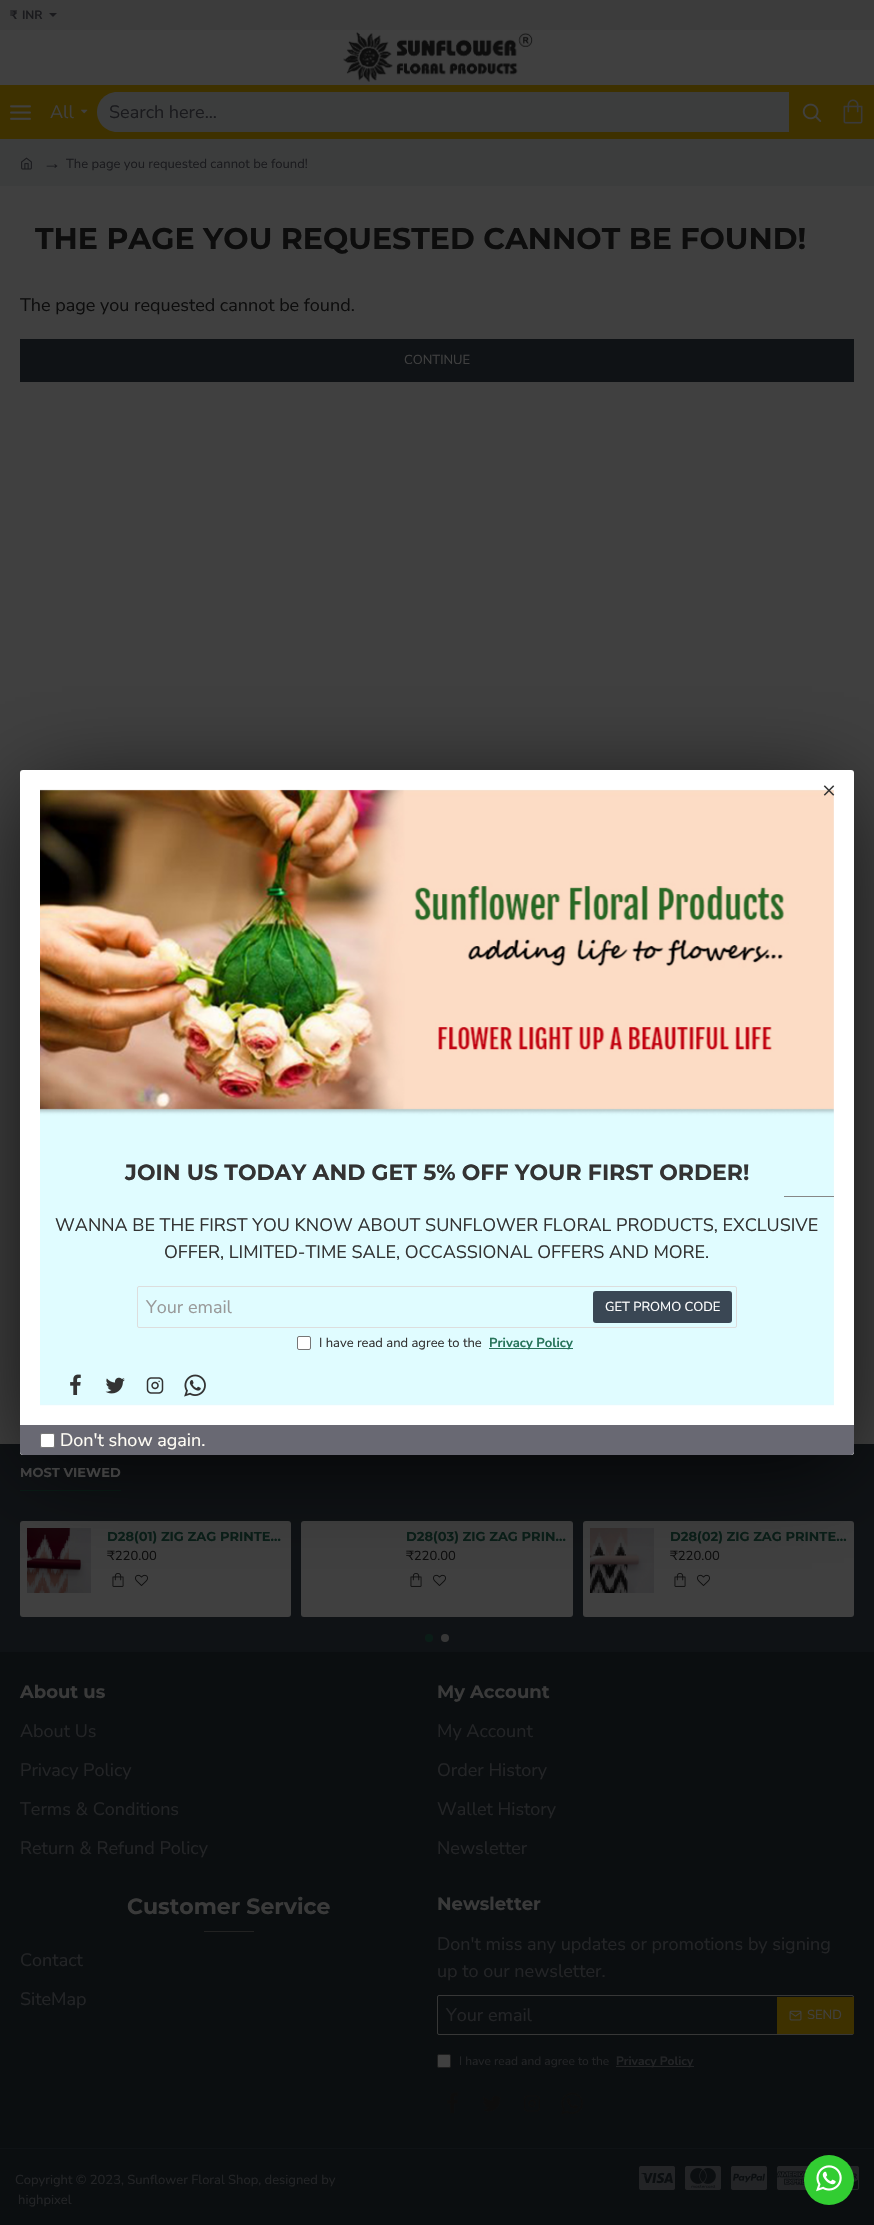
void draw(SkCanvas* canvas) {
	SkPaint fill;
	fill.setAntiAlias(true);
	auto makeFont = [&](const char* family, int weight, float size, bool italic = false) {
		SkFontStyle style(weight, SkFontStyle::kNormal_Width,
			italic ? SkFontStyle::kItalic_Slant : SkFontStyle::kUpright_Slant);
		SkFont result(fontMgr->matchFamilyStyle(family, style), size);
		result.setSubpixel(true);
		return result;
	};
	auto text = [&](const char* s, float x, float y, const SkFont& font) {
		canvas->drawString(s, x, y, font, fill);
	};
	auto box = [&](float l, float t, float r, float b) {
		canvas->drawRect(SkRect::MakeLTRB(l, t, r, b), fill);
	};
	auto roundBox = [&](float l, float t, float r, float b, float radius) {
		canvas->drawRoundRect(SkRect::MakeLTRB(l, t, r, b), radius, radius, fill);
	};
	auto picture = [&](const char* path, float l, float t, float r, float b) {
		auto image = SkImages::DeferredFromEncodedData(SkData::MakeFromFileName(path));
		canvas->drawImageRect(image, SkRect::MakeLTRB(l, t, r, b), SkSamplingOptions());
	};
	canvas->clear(0xFF404040);
	fill.setColor(0xFF3C3C3C);
	box(0, 0, 874, 30);
	fill.setColor(0xFF1A1A1D);
	canvas->drawPath(SkPathBuilder().moveTo(49, 13).lineTo(57, 13).lineTo(53, 17).close().detach(), fill);
	picture("image0.png", 343, 32, 533, 82);
	fill.setColor(0xFF3E3100);
	box(0, 85, 874, 139);
	picture("image1.png", 10, 105, 31, 120);
	picture("image2.png", 81, 109, 88, 114);
	fill.setColor(0xFF3C3D3D);
	canvas->drawPath(SkPathBuilder().moveTo(117, 92).lineTo(789, 92).lineTo(789, 132).lineTo(117, 132).cubicTo(106, 132, 97, 123, 97, 112).cubicTo(97, 101, 106, 92, 117, 92).close().detach(), fill);
	picture("image3.png", 802, 103, 822, 122);
	picture("image4.png", 843, 99, 863, 124);
	box(0, 139, 874, 186);
	picture("image5.png", 21, 157, 32, 170);
	fill.setColor(0xFF0F1215);
	box(20, 339, 854, 382);
	fill.setColor(0xFF0B0E10);
	box(0, 1652, 874, 2225);
	fill.setColor(0xFF0F1215);
	box(0, 1444, 874, 1652);
	fill.setColor(0xFF0A1D17);
	box(20, 1490, 121, 1491);
	fill.setColor(0xFF404040);
	roundBox(20, 1521, 291, 1617, 3);
	picture("image6.png", 27, 1528, 91, 1593);
	picture("image7.png", 112, 1573, 124, 1587);
	picture("image8.png", 135, 1574, 148, 1586);
	roundBox(301, 1521, 573, 1617, 3);
	picture("image7.png", 410, 1573, 422, 1587);
	picture("image8.png", 433, 1574, 446, 1586);
	roundBox(583, 1521, 854, 1617, 3);
	picture("image9.png", 590, 1528, 654, 1593);
	picture("image7.png", 674, 1573, 686, 1587);
	picture("image8.png", 697, 1574, 710, 1586);
	fill.setColor(0xFF0A1D17);
	canvas->drawCircle(429, 1638, 4, fill);
	fill.setColor(0xFF373737);
	canvas->drawCircle(445, 1638, 4, fill);
	fill.setColor(0xFF222222);
	box(204, 1931, 254, 1932);
	fill.setStyle(SkPaint::kStroke_Style);
	fill.setStrokeWidth(1);
	fill.setColor(0xFF373737);
	canvas->drawRoundRect(SkRect::MakeLTRB(437.5f, 1995.5f, 853.5f, 2034.5f), 1.5f, 1.5f, fill);
	fill.setStyle(SkPaint::kFill_Style);
	fill.setColor(0xFF3E3100);
	box(777, 1997, 854, 2034);
	picture("image10.png", 789, 2010, 802, 2021);
	fill.setColor(0xFF404040);
	canvas->drawRoundRect(SkRect::MakeLTRB(437.5f, 2054.5f, 450.5f, 2067.5f), 1.5f, 1.5f, fill);
	fill.setStyle(SkPaint::kStroke_Style);
	fill.setColor(0xFF1E1E1E);
	canvas->drawRoundRect(SkRect::MakeLTRB(437.5f, 2054.5f, 450.5f, 2067.5f), 1.5f, 1.5f, fill);
	fill.setStyle(SkPaint::kFill_Style);
	fill.setColor(0xFF232426);
	box(616, 2066, 694, 2067);
	picture("image11.png", 447, 2092, 458, 2113);
	picture("image12.png", 483, 2096, 501, 2112);
	picture("image13.png", 524, 2095, 540, 2112);
	picture("image14.png", 561, 2092, 583, 2115);
	fill.setColor(0xFF0F1215);
	box(0, 2148, 874, 2149);
	picture("image15.png", 639, 2166, 675, 2190);
	picture("image16.png", 685, 2166, 721, 2190);
	picture("image17.png", 731, 2166, 767, 2190);
	picture("image18.png", 777, 2166, 809, 2190);
	picture("image19.png", 849, 2166, 859, 2190);
	fill.setColor(0xCC000000);
	fill.setMaskFilter(SkMaskFilter::MakeBlur(kNormal_SkBlurStyle, 45));
	canvas->drawRect(SkRect::MakeLTRB(30, 795, 844, 1460), fill);
	fill.setMaskFilter(nullptr);
	fill.setColor(0xFFFFFFFF);
	roundBox(20, 770, 854, 1455, 3);
	fill.setColor(0xFFF0F2F5);
	box(40, 790, 834, 1405);
	picture("image21.png", 40, 789, 834, 1406);
	picture("image20.png", 823, 785, 835, 796);
	fill.setColor(0xFF878787);
	box(784, 1196, 834, 1197);
	fill.setStyle(SkPaint::kStroke_Style);
	fill.setColor(0xFFDDDDDD);
	canvas->drawRoundRect(SkRect::MakeLTRB(137.5f, 1286.5f, 736.5f, 1327.5f), 1.5f, 1.5f, fill);
	fill.setStyle(SkPaint::kFill_Style);
	fill.setColor(0xFF3A4754);
	roundBox(593, 1291, 732, 1323, 3);
	fill.setColor(0xFFFFFFFF);
	canvas->drawRoundRect(SkRect::MakeLTRB(297.5f, 1336.5f, 310.5f, 1349.5f), 1.5f, 1.5f, fill);
	fill.setStyle(SkPaint::kStroke_Style);
	fill.setColor(0xFF767676);
	canvas->drawRoundRect(SkRect::MakeLTRB(297.5f, 1336.5f, 310.5f, 1349.5f), 1.5f, 1.5f, fill);
	fill.setStyle(SkPaint::kFill_Style);
	fill.setColor(0xFF28755B);
	box(489, 1348, 573, 1349);
	picture("image22.png", 70, 1374, 81, 1395);
	picture("image23.png", 105, 1377, 125, 1394);
	picture("image24.png", 146, 1377, 164, 1394);
	picture("image25.png", 184, 1374, 206, 1397);
	fill.setColor(0xFF696973);
	canvas->drawPath(SkPathBuilder().moveTo(20, 1425).lineTo(854, 1425).lineTo(854, 1452).cubicTo(854, 1453.5f, 852.5f, 1455, 851, 1455).lineTo(23, 1455).cubicTo(21.5f, 1455, 20, 1453.5f, 20, 1452).close().detach(), fill);
	fill.setColor(0xFFFFFFFF);
	canvas->drawRoundRect(SkRect::MakeLTRB(40.5f, 1433.5f, 54.5f, 1447.5f), 1.5f, 1.5f, fill);
	fill.setStyle(SkPaint::kStroke_Style);
	fill.setColor(0xFF767676);
	canvas->drawRoundRect(SkRect::MakeLTRB(40.5f, 1433.5f, 54.5f, 1447.5f), 1.5f, 1.5f, fill);
	fill.setStyle(SkPaint::kFill_Style);
	fill.setColor(0xFF32CD32);
	canvas->drawCircle(829, 2180, 25, fill);
	picture("image26.png", 816, 2165, 842, 2192);
	auto font1 = makeFont("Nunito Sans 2", 200, 12);
	fill.setColor(0xFF1A1A1D);
	text("₹", 10, 19, font1);
	text("INR", 22, 19, font1);
	auto font2 = makeFont("Nunito Sans", 200, 18);
	fill.setColor(0xFF404040);
	text("All", 50, 118, font2);
	fill.setColor(0xFF1A1A1D);
	text("Search here...", 109, 118, font2);
	auto font3 = makeFont("Liberation Serif", 400, 18);
	text("→", 43, 169, font3);
	auto font4 = makeFont("Nunito Sans", 200, 13);
	text("The page you requested cannot be found!", 66, 168, font4);
	auto font5 = makeFont("Montserrat", 100, 30);
	fill.setColor(0xFF0D0D0D);
	text("THE PAGE YOU REQUESTED CANNOT BE FOUND!", 35, 249, font5);
	text("The page you requested cannot be found.", 20, 311, font2);
	fill.setColor(0xFF404040);
	text("CONTINUE", 404, 364, font4);
	auto font6 = makeFont("Montserrat", 100, 13);
	text("MOST VIEWED", 20, 1477, font6);
	fill.setColor(0xFF0A1D17);
	text("D28(01) ZIG ZAG PRINTE…", 107, 1541, font6);
	fill.setColor(0xFF0D0D0D);
	text("₹220.00", 107, 1560, font4);
	fill.setColor(0xFF0A1D17);
	text("D28(03) ZIG ZAG PRIN…", 406, 1541, font6);
	fill.setColor(0xFF0D0D0D);
	text("₹220.00", 406, 1560, font4);
	fill.setColor(0xFF0A1D17);
	text("D28(02) ZIG ZAG PRINTE…", 670, 1541, font6);
	fill.setColor(0xFF0D0D0D);
	text("₹220.00", 670, 1560, font4);
	auto font7 = makeFont("Montserrat", 100, 18);
	fill.setColor(0xFF3A3A3A);
	text("About us", 20, 1698, font7);
	fill.setColor(0xFF232426);
	text("About Us", 20, 1737, font2);
	text("Privacy Policy", 20, 1776, font2);
	text("Terms & Conditions", 20, 1815, font2);
	text("Return & Refund Policy", 20, 1854, font2);
	fill.setColor(0xFF3A3A3A);
	text("My Account", 437, 1698, font7);
	fill.setColor(0xFF232426);
	text("My Account", 437, 1737, font2);
	text("Order History", 437, 1776, font2);
	text("Wallet History", 437, 1815, font2);
	text("Newsletter", 437, 1854, font2);
	auto font8 = makeFont("Montserrat", 100, 22);
	fill.setColor(0xFF3A3A3A);
	text("Customer Service", 127, 1914, font8);
	fill.setColor(0xFF232426);
	text("Contact", 20, 1966, font2);
	text("SiteMap", 20, 2005, font2);
	fill.setColor(0xFF3A3A3A);
	text("Newsletter", 437, 1910, font7);
	fill.setColor(0xFF232426);
	text("Don't miss any updates or promotions by signing", 437, 1950, font2);
	text("up to our newsletter.", 437, 1977, font2);
	text("Your email", 446, 2021, font2);
	fill.setColor(0xFF404040);
	text("SEND", 807, 2019, font4);
	auto font9 = makeFont("Nunito Sans", 200, 12);
	fill.setColor(0xFF232426);
	text("I have read and agree to the", 459, 2065, font9);
	text("Privacy Policy", 616, 2065, font1);
	text("Copyright © 2023, Sunflower Floral Shop, designed by", 15, 2184, font4);
	text("highpixel", 18, 2204, font4);
	fill.setColor(0xFF333333);
	text("JOIN US TODAY AND GET 5% OFF YOUR FIRST ORDER!", 125, 1180, font8);
	text("WANNA BE THE FIRST YOU KNOW ABOUT SUNFLOWER FLORAL PRODUCTS, EXCLUSIVE", 55, 1231, font2);
	text("OFFER, LIMITED-TIME SALE, OCCASSIONAL OFFERS AND MORE.", 164, 1258, font2);
	fill.setColor(0xFF999999);
	text("Your email", 146, 1313, font2);
	fill.setColor(0xFFFFFFFF);
	text("GET PROMO CODE", 605, 1311, font4);
	fill.setColor(0xFF333333);
	text("I have read and agree to the", 319, 1347, font4);
	auto font10 = makeFont("Nunito Sans 2", 200, 13);
	fill.setColor(0xFF28755B);
	text("Privacy Policy", 489, 1347, font10);
	fill.setColor(0xFFFFFDF5);
	text("Don't show again.", 60, 1446, font2);
}
